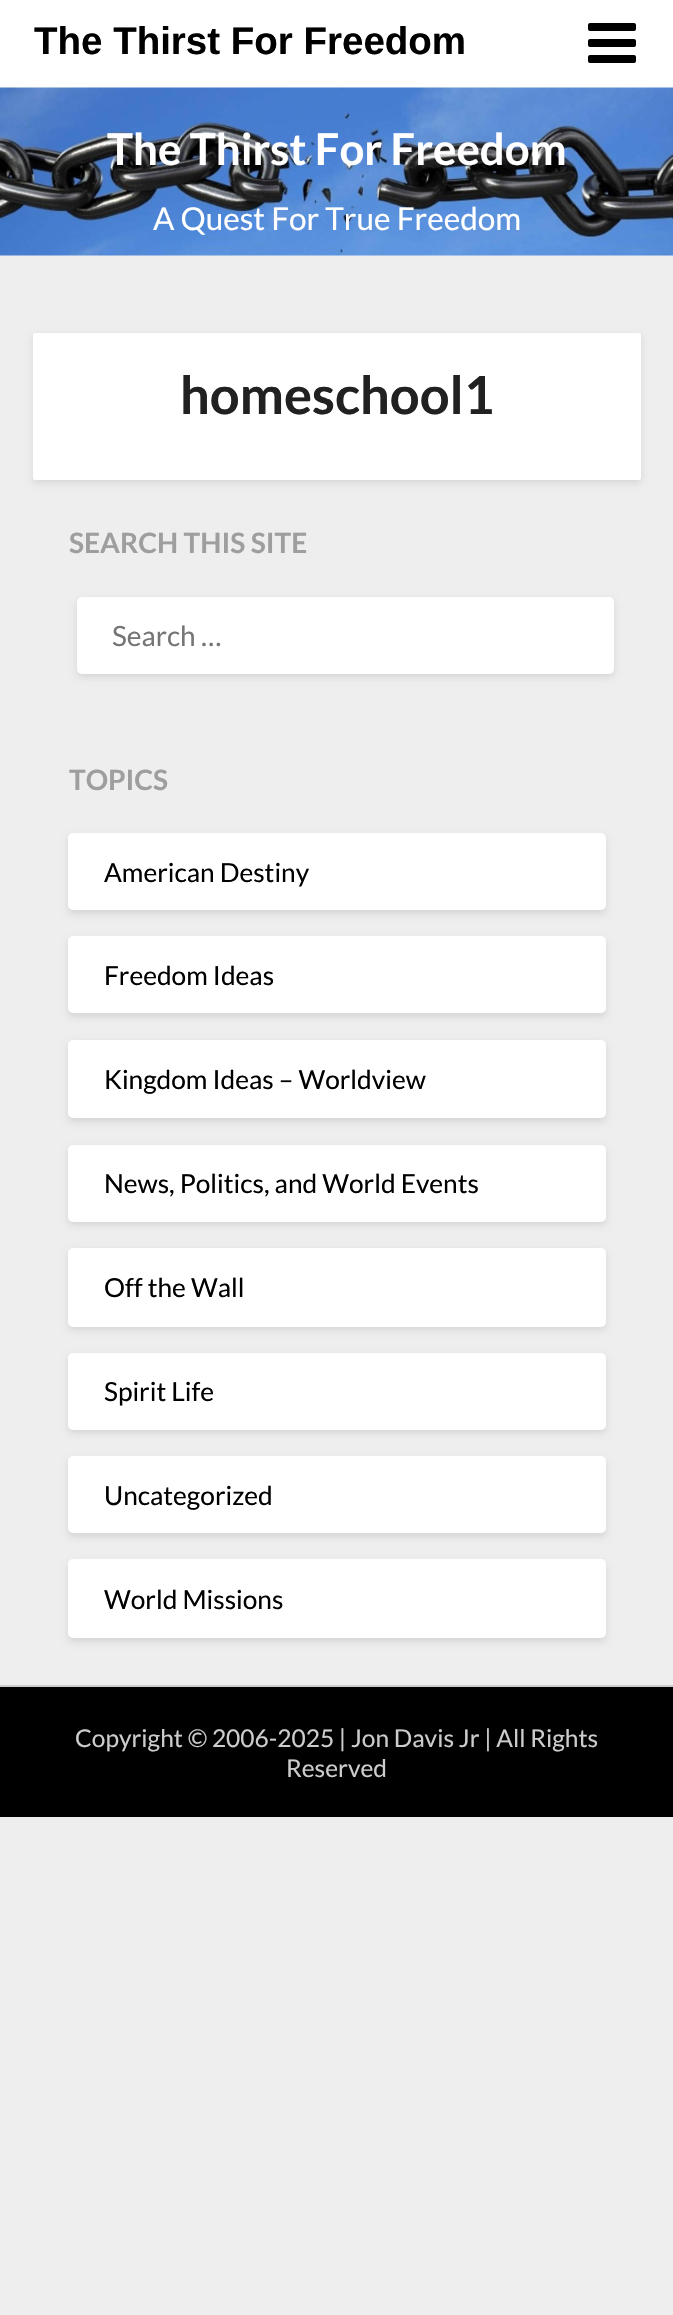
void draw(SkCanvas* canvas) {
	SkPaint fill;
	fill.setAntiAlias(true);
	auto makeFont = [&](const char* family, int weight, float size, bool italic = false) {
		SkFontStyle style(weight, SkFontStyle::kNormal_Width,
			italic ? SkFontStyle::kItalic_Slant : SkFontStyle::kUpright_Slant);
		SkFont result(fontMgr->matchFamilyStyle(family, style), size);
		result.setSubpixel(true);
		return result;
	};
	auto text = [&](const char* s, float x, float y, const SkFont& font) {
		canvas->drawString(s, x, y, font, fill);
	};
	auto box = [&](float l, float t, float r, float b) {
		canvas->drawRect(SkRect::MakeLTRB(l, t, r, b), fill);
	};
	auto roundBox = [&](float l, float t, float r, float b, float radius) {
		canvas->drawRoundRect(SkRect::MakeLTRB(l, t, r, b), radius, radius, fill);
	};
	auto picture = [&](const char* path, float l, float t, float r, float b) {
		auto image = SkImages::DeferredFromEncodedData(SkData::MakeFromFileName(path));
		canvas->drawImageRect(image, SkRect::MakeLTRB(l, t, r, b), SkSamplingOptions());
	};
	canvas->clear(0xFFEEEEEE);
	fill.setColor(0xFFFFFFFF);
	box(0, 0, 673, 88);
	picture("image0.png", 588, 23, 636, 63);
	picture("image1.png", 0, 87, 673, 256);
	fill.setColor(0x1A000000);
	fill.setMaskFilter(SkMaskFilter::MakeBlur(kNormal_SkBlurStyle, 3.5f));
	canvas->drawRoundRect(SkRect::MakeLTRB(33, 336, 641, 483), 2, 2, fill);
	fill.setMaskFilter(nullptr);
	fill.setColor(0xFFFFFFFF);
	roundBox(33, 333, 641, 480, 2);
	fill.setColor(0x1A000000);
	fill.setMaskFilter(SkMaskFilter::MakeBlur(kNormal_SkBlurStyle, 3.5f));
	canvas->drawRoundRect(SkRect::MakeLTRB(77, 600, 614, 677), 5, 5, fill);
	fill.setMaskFilter(nullptr);
	fill.setColor(0xFFFFFFFF);
	roundBox(77, 597, 614, 674, 5);
	fill.setColor(0x1A000000);
	fill.setMaskFilter(SkMaskFilter::MakeBlur(kNormal_SkBlurStyle, 3.5f));
	canvas->drawRoundRect(SkRect::MakeLTRB(68, 837, 606, 914), 5, 5, fill);
	fill.setMaskFilter(nullptr);
	fill.setColor(0xFFFFFFFF);
	roundBox(68, 833, 606, 910, 5);
	fill.setColor(0x1A000000);
	fill.setMaskFilter(SkMaskFilter::MakeBlur(kNormal_SkBlurStyle, 3.5f));
	canvas->drawRoundRect(SkRect::MakeLTRB(68, 940, 606, 1017), 5, 5, fill);
	fill.setMaskFilter(nullptr);
	fill.setColor(0xFFFFFFFF);
	roundBox(68, 936, 606, 1013, 5);
	fill.setColor(0x1A000000);
	fill.setMaskFilter(SkMaskFilter::MakeBlur(kNormal_SkBlurStyle, 3.5f));
	canvas->drawRoundRect(SkRect::MakeLTRB(68, 1043, 606, 1122), 5, 5, fill);
	fill.setMaskFilter(nullptr);
	fill.setColor(0xFFFFFFFF);
	roundBox(68, 1040, 606, 1118, 5);
	fill.setColor(0x1A000000);
	fill.setMaskFilter(SkMaskFilter::MakeBlur(kNormal_SkBlurStyle, 3.5f));
	canvas->drawRoundRect(SkRect::MakeLTRB(68, 1148, 606, 1225), 5, 5, fill);
	fill.setMaskFilter(nullptr);
	fill.setColor(0xFFFFFFFF);
	roundBox(68, 1145, 606, 1222, 5);
	fill.setColor(0x1A000000);
	fill.setMaskFilter(SkMaskFilter::MakeBlur(kNormal_SkBlurStyle, 3.5f));
	canvas->drawRoundRect(SkRect::MakeLTRB(68, 1251, 606, 1330), 5, 5, fill);
	fill.setMaskFilter(nullptr);
	fill.setColor(0xFFFFFFFF);
	roundBox(68, 1248, 606, 1327, 5);
	fill.setColor(0x1A000000);
	fill.setMaskFilter(SkMaskFilter::MakeBlur(kNormal_SkBlurStyle, 3.5f));
	canvas->drawRoundRect(SkRect::MakeLTRB(68, 1356, 606, 1433), 5, 5, fill);
	fill.setMaskFilter(nullptr);
	fill.setColor(0xFFFFFFFF);
	roundBox(68, 1353, 606, 1430, 5);
	fill.setColor(0x1A000000);
	fill.setMaskFilter(SkMaskFilter::MakeBlur(kNormal_SkBlurStyle, 3.5f));
	canvas->drawRoundRect(SkRect::MakeLTRB(68, 1460, 606, 1537), 5, 5, fill);
	fill.setMaskFilter(nullptr);
	fill.setColor(0xFFFFFFFF);
	roundBox(68, 1456, 606, 1533, 5);
	fill.setColor(0x1A000000);
	fill.setMaskFilter(SkMaskFilter::MakeBlur(kNormal_SkBlurStyle, 3.5f));
	canvas->drawRoundRect(SkRect::MakeLTRB(68, 1563, 606, 1642), 5, 5, fill);
	fill.setMaskFilter(nullptr);
	fill.setColor(0xFFFFFFFF);
	roundBox(68, 1559, 606, 1638, 5);
	fill.setColor(0xFF000000);
	box(0, 1687, 673, 1817);
	fill.setColor(0xFFCCCCCC);
	box(0, 1685, 673, 1687);
	auto font1 = makeFont("Liberation Sans", 700, 38.5f);
	fill.setColor(0xFF000000);
	text("The Thirst For Freedom", 34, 54, font1);
	auto font2 = makeFont("Lato", 700, 43.75f);
	fill.setColor(0xFFFFFFFF);
	text("The Thirst For Freedom", 107, 165, font2);
	auto font3 = makeFont("Lato", 400, 31.5f);
	text("A Quest For True Freedom", 153, 230, font3);
	auto font4 = makeFont("Lato", 700, 52.5f);
	fill.setColor(0xFF212121);
	text("homeschool1", 180, 414, font4);
	auto font5 = makeFont("Lato", 700, 28);
	fill.setColor(0xFF9E9E9E);
	text("SEARCH THIS SITE", 69, 553, font5);
	auto font6 = makeFont("Lato", 400, 28);
	fill.setColor(0xFF757575);
	text("Search …", 112, 646, font6);
	fill.setColor(0xFF9E9E9E);
	text("TOPICS", 69, 790, font5);
	auto font7 = makeFont("Lato", 400, 26.25f);
	fill.setColor(0xFF000000);
	text("American Destiny", 104, 882, font7);
	text("Freedom Ideas", 104, 985, font7);
	text("Kingdom Ideas – Worldview", 104, 1089, font7);
	text("News, Politics, and World Events", 104, 1193, font7);
	text("Off the Wall", 104, 1297, font7);
	text("Spirit Life", 104, 1401, font7);
	text("Uncategorized", 104, 1505, font7);
	text("World Missions", 104, 1609, font7);
	auto font8 = makeFont("Lato", 400, 24.5f);
	fill.setColor(0xFFCCCCCC);
	text("Copyright © 2006-2025 | Jon Davis Jr | All Rights", 75, 1747, font8);
	text("Reserved", 286, 1777, font8);
}
